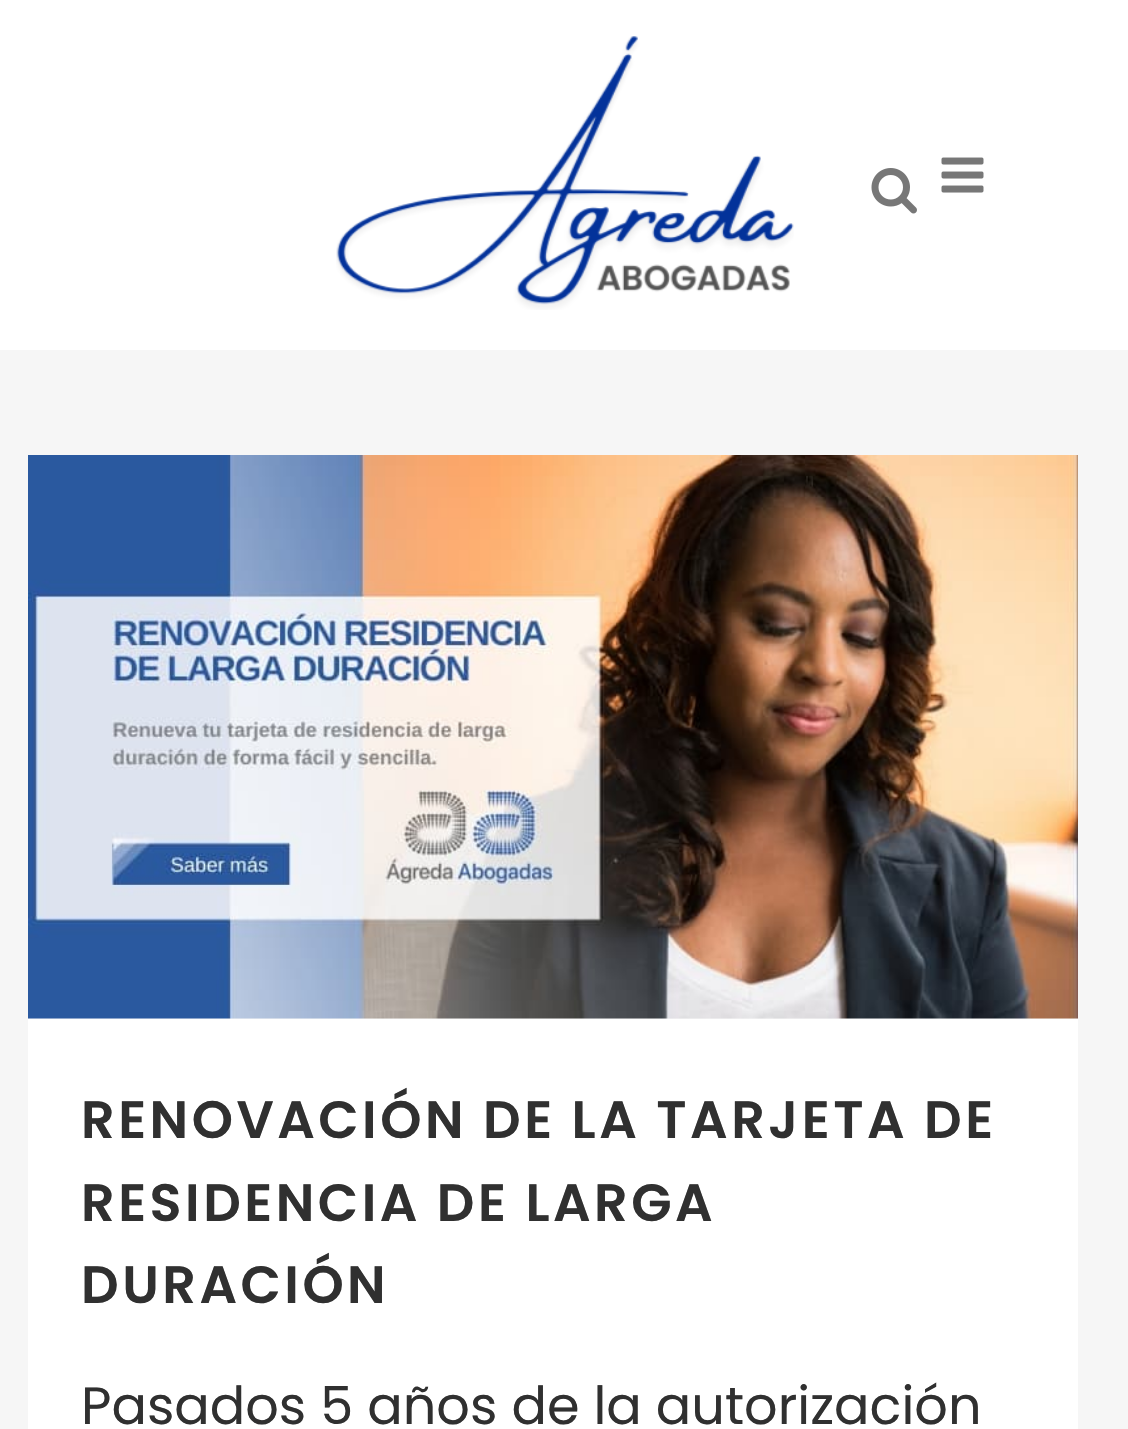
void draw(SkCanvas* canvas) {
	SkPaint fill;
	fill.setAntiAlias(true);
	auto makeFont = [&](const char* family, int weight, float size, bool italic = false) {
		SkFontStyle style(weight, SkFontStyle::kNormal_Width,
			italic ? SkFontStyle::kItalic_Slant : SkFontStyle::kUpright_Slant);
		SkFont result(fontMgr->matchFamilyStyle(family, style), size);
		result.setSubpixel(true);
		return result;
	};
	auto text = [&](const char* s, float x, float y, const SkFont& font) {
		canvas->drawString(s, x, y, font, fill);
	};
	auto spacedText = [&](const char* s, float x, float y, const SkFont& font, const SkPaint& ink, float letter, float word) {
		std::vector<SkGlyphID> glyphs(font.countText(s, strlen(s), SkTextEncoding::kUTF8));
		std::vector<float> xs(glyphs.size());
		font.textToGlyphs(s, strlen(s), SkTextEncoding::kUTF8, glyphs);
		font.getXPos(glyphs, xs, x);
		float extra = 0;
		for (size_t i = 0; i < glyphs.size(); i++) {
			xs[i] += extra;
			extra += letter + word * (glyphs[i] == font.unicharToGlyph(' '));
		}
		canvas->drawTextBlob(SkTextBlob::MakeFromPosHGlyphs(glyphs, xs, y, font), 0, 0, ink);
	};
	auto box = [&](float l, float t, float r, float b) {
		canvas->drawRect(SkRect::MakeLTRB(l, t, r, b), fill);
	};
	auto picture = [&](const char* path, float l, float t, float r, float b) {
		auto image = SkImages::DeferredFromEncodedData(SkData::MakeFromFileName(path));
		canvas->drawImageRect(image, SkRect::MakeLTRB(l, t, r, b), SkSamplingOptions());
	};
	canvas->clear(0xFFF6F6F6);
	fill.setColor(0xFFFFFFFF);
	box(0, 0, 1128, 350);
	picture("image0.png", 336, 36, 794, 310);
	picture("image1.png", 941, 157, 984, 193);
	picture("image2.png", 871, 168, 917, 214);
	picture("image3.png", 28, 455, 1078, 1019);
	box(28, 1019, 1078, 1429);
	auto font1 = makeFont("Poppins", 600, 52.5f);
	fill.setColor(0xFF303030);
	spacedText("RENOVACIÓN DE LA TARJETA DE", 81, 1138, font1, fill, 3.5f, 0);
	spacedText("RESIDENCIA DE LARGA", 81, 1221, font1, fill, 3.5f, 0);
	spacedText("DURACIÓN", 81, 1303, font1, fill, 3.5f, 0);
	auto font2 = makeFont("Poppins", 400, 52.5f);
	text("Pasados 5 años de la autorización", 81, 1424, font2);
}
